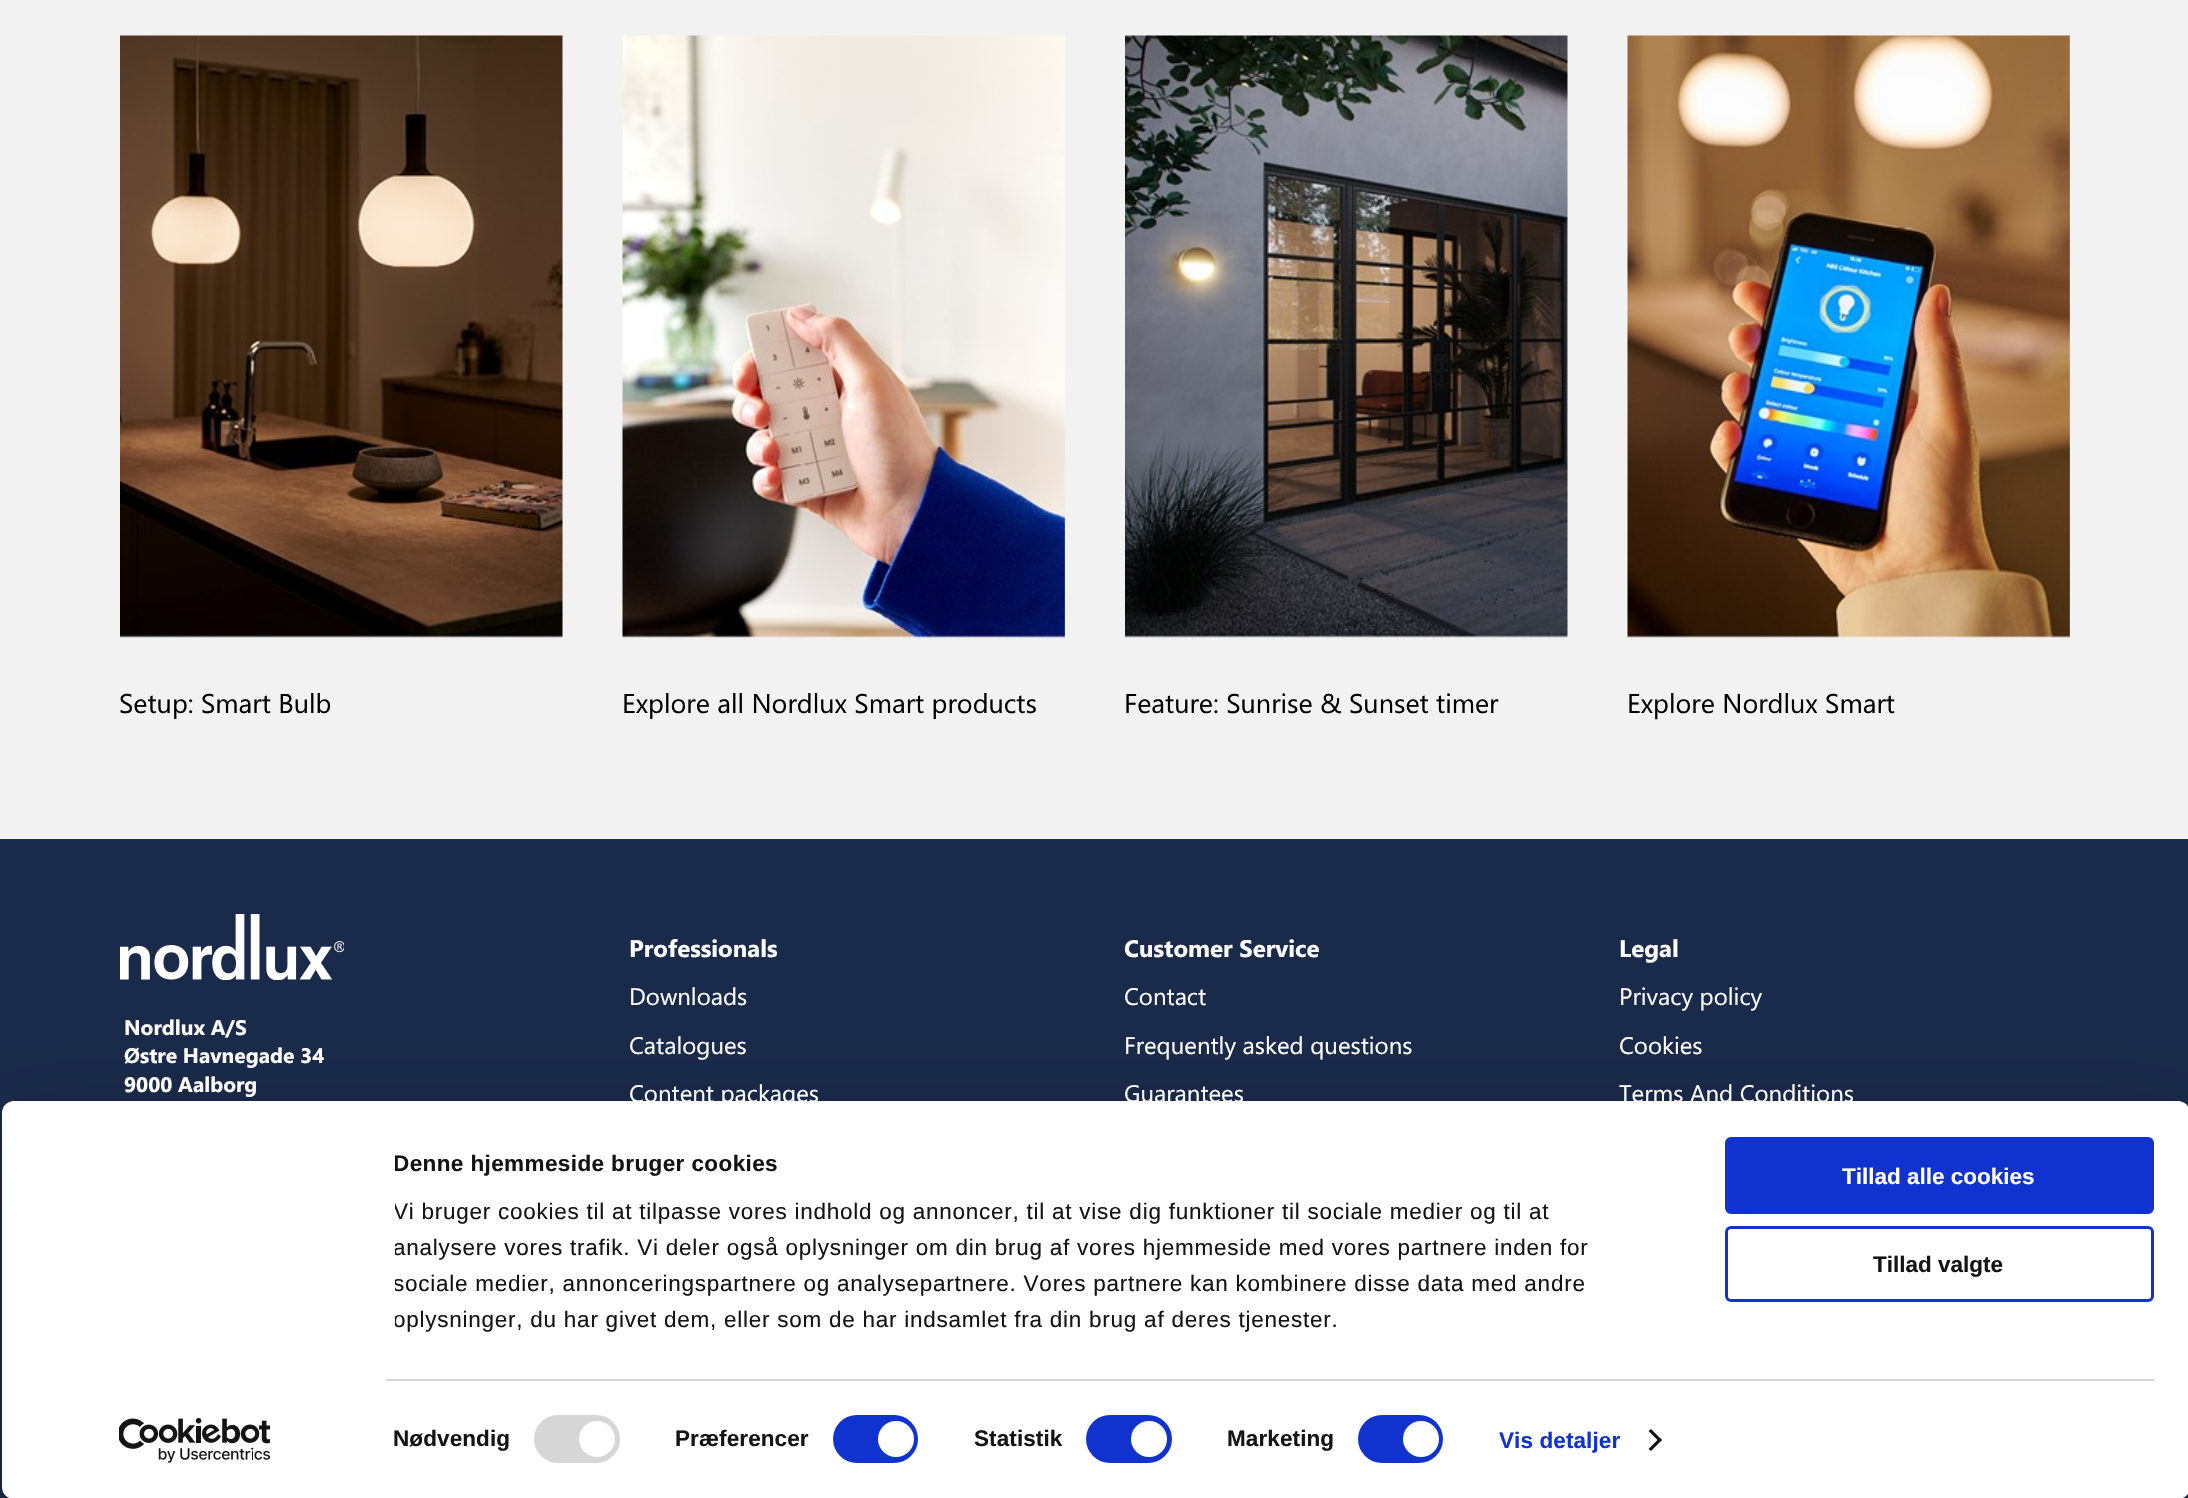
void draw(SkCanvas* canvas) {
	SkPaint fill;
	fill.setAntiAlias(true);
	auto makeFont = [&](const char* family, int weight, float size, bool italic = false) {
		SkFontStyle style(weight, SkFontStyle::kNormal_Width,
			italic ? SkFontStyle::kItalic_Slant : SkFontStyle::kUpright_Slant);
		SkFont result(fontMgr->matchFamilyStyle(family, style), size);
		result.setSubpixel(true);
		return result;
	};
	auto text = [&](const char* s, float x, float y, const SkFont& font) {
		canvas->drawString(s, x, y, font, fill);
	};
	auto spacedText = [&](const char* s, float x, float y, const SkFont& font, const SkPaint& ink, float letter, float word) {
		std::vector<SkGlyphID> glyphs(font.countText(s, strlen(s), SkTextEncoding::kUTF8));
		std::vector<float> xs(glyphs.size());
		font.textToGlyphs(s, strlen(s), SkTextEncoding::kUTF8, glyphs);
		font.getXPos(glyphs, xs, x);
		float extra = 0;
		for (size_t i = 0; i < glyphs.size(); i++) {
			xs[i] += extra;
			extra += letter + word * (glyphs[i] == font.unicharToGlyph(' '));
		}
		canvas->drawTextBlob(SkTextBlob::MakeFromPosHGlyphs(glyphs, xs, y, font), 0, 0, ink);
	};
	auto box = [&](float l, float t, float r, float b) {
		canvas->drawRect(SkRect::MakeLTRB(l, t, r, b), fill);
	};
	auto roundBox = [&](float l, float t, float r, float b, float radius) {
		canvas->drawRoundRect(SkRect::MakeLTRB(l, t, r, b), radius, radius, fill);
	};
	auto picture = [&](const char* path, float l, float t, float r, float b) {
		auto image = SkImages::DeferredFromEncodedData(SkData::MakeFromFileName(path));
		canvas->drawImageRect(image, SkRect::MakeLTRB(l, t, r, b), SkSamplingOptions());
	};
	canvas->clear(0xFFF2F2F2);
	picture("image0.png", 120, 35, 563, 638);
	picture("image1.png", 622, 35, 1065, 638);
	picture("image2.png", 1125, 35, 1568, 638);
	picture("image3.png", 1627, 35, 2070, 638);
	fill.setColor(0xFF1A2A4A);
	box(0, 839, 2188, 1498);
	picture("image4.png", 120, 914, 344, 980);
	canvas->save();
	canvas->clipPath(SkPathBuilder(SkPathFillType::kEvenOdd).moveTo(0, 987).lineTo(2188, 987).lineTo(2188, 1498).lineTo(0, 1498).close().moveTo(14, 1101).lineTo(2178, 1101).cubicTo(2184.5f, 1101, 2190, 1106.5f, 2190, 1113).lineTo(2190, 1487).cubicTo(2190, 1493.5f, 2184.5f, 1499, 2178, 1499).lineTo(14, 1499).cubicTo(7.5f, 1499, 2, 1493.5f, 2, 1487).lineTo(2, 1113).cubicTo(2, 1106.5f, 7.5f, 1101, 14, 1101).close().detach(), true);
	fill.setColor(0x4D000000);
	fill.setMaskFilter(SkMaskFilter::MakeBlur(kNormal_SkBlurStyle, 52.5f));
	canvas->drawRoundRect(SkRect::MakeLTRB(2, 1146, 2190, 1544), 12, 12, fill);
	fill.setMaskFilter(nullptr);
	canvas->restore();
	fill.setColor(0xFFFFFFFF);
	roundBox(2, 1101, 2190, 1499, 12);
	fill.setColor(0xFFD6D6D6);
	box(386, 1379, 2154, 1381);
	roundBox(534, 1415, 620, 1463, 24);
	fill.setColor(0xFFFFFFFF);
	canvas->drawCircle(597, 1439, 18, fill);
	fill.setColor(0xFF1032CF);
	roundBox(833, 1415, 918, 1463, 24);
	fill.setColor(0xFFFFFFFF);
	canvas->drawCircle(896, 1439, 18, fill);
	fill.setColor(0xFF1032CF);
	roundBox(1086, 1415, 1172, 1463, 24);
	fill.setColor(0xFFFFFFFF);
	canvas->drawCircle(1149, 1439, 18, fill);
	fill.setColor(0xFF1032CF);
	roundBox(1358, 1415, 1443, 1463, 24);
	fill.setColor(0xFFFFFFFF);
	canvas->drawCircle(1421, 1439, 18, fill);
	fill.setColor(0xFF141414);
	canvas->drawPath(SkPathBuilder().moveTo(1651, 1429).lineTo(1662, 1440).lineTo(1659.5f, 1442).lineTo(1648.5f, 1431).close().detach(), fill);
	canvas->drawPath(SkPathBuilder().moveTo(1659.5f, 1438).lineTo(1662, 1440).lineTo(1651, 1451).lineTo(1648.5f, 1449).close().detach(), fill);
	fill.setColor(0xFF1032CF);
	canvas->drawRoundRect(SkRect::MakeLTRB(1726.5f, 1138.5f, 2152.5f, 1212.5f), 4.5f, 4.5f, fill);
	fill.setStyle(SkPaint::kStroke_Style);
	fill.setStrokeWidth(3);
	canvas->drawRoundRect(SkRect::MakeLTRB(1726.5f, 1138.5f, 2152.5f, 1212.5f), 4.5f, 4.5f, fill);
	canvas->drawRoundRect(SkRect::MakeLTRB(1726.5f, 1227.5f, 2152.5f, 1300.5f), 4.5f, 4.5f, fill);
	picture("image5.png", 119, 1418, 270, 1463);
	canvas->save();
	canvas->clipRect(SkRect::MakeLTRB(120, 36, 2070, 719));
	auto font1 = makeFont("Segoe UI", 400, 27);
	fill.setStyle(SkPaint::kFill_Style);
	fill.setColor(0xFF000000);
	text("Setup: Smart Bulb", 119, 713, font1);
	text("Explore all Nordlux Smart products", 622, 713, font1);
	canvas->restore();
	text("Feature: Sunrise & Sunset timer", 1124, 713, font1);
	text("Explore Nordlux Smart", 1627, 713, font1);
	auto font2 = makeFont("Segoe UI", 700, 21);
	fill.setColor(0xFFFFFFFF);
	text("Nordlux A/S", 124, 1035, font2);
	text("Østre Havnegade 34", 124, 1063, font2);
	text("9000 Aalborg", 124, 1092, font2);
	auto font3 = makeFont("Segoe UI", 700, 24);
	text("Professionals", 629, 957, font3);
	auto font4 = makeFont("Segoe UI", 400, 24);
	text("Downloads", 629, 1005, font4);
	text("Catalogues", 629, 1054, font4);
	text("Content packages", 629, 1102, font4);
	text("Customer Service", 1124, 957, font3);
	text("Contact", 1124, 1005, font4);
	text("Frequently asked questions", 1124, 1054, font4);
	text("Guarantees", 1124, 1102, font4);
	text("Legal", 1619, 957, font3);
	text("Privacy policy", 1619, 1005, font4);
	text("Cookies", 1619, 1054, font4);
	text("Terms And Conditions", 1619, 1102, font4);
	canvas->save();
	canvas->clipRect(SkRect::MakeLTRB(395, 1146, 1682, 1337));
	auto font5 = makeFont("Liberation Sans", 700, 22.5f);
	fill.setColor(0xFF141414);
	spacedText("Denne hjemmeside bruger cookies", 393, 1171, font5, fill, 0.4f, 0);
	auto font6 = makeFont("Liberation Sans", 400, 22.5f);
	spacedText("Vi bruger cookies til at tilpasse vores indhold og annoncer, til at vise dig funktioner til sociale medier og til at", 393, 1219, font6, fill, 0.75f, 0);
	spacedText("analysere vores trafik. Vi deler også oplysninger om din brug af vores hjemmeside med vores partnere inden for", 393, 1255, font6, fill, 0.75f, 0);
	spacedText("sociale medier, annonceringspartnere og analysepartnere. Vores partnere kan kombinere disse data med andre", 393, 1291, font6, fill, 0.75f, 0);
	spacedText("oplysninger, du har givet dem, eller som de har indsamlet fra din brug af deres tjenester.", 393, 1327, font6, fill, 0.75f, 0);
	canvas->restore();
	spacedText("Nødvendig", 393, 1446, font5, fill, 0.1f, 0);
	spacedText("Præferencer", 675, 1446, font5, fill, 0.1f, 0);
	spacedText("Statistik", 974, 1446, font5, fill, 0.1f, 0);
	spacedText("Marketing", 1227, 1446, font5, fill, 0.1f, 0);
	fill.setColor(0xFF1032CF);
	spacedText("Vis detaljer", 1499, 1448, font5, fill, 0.1f, 0);
	fill.setColor(0xFFFFFFFF);
	text("Tillad alle cookies", 1842, 1184, font5);
	fill.setColor(0xFF141414);
	text("Tillad valgte", 1873, 1272, font5);
}
